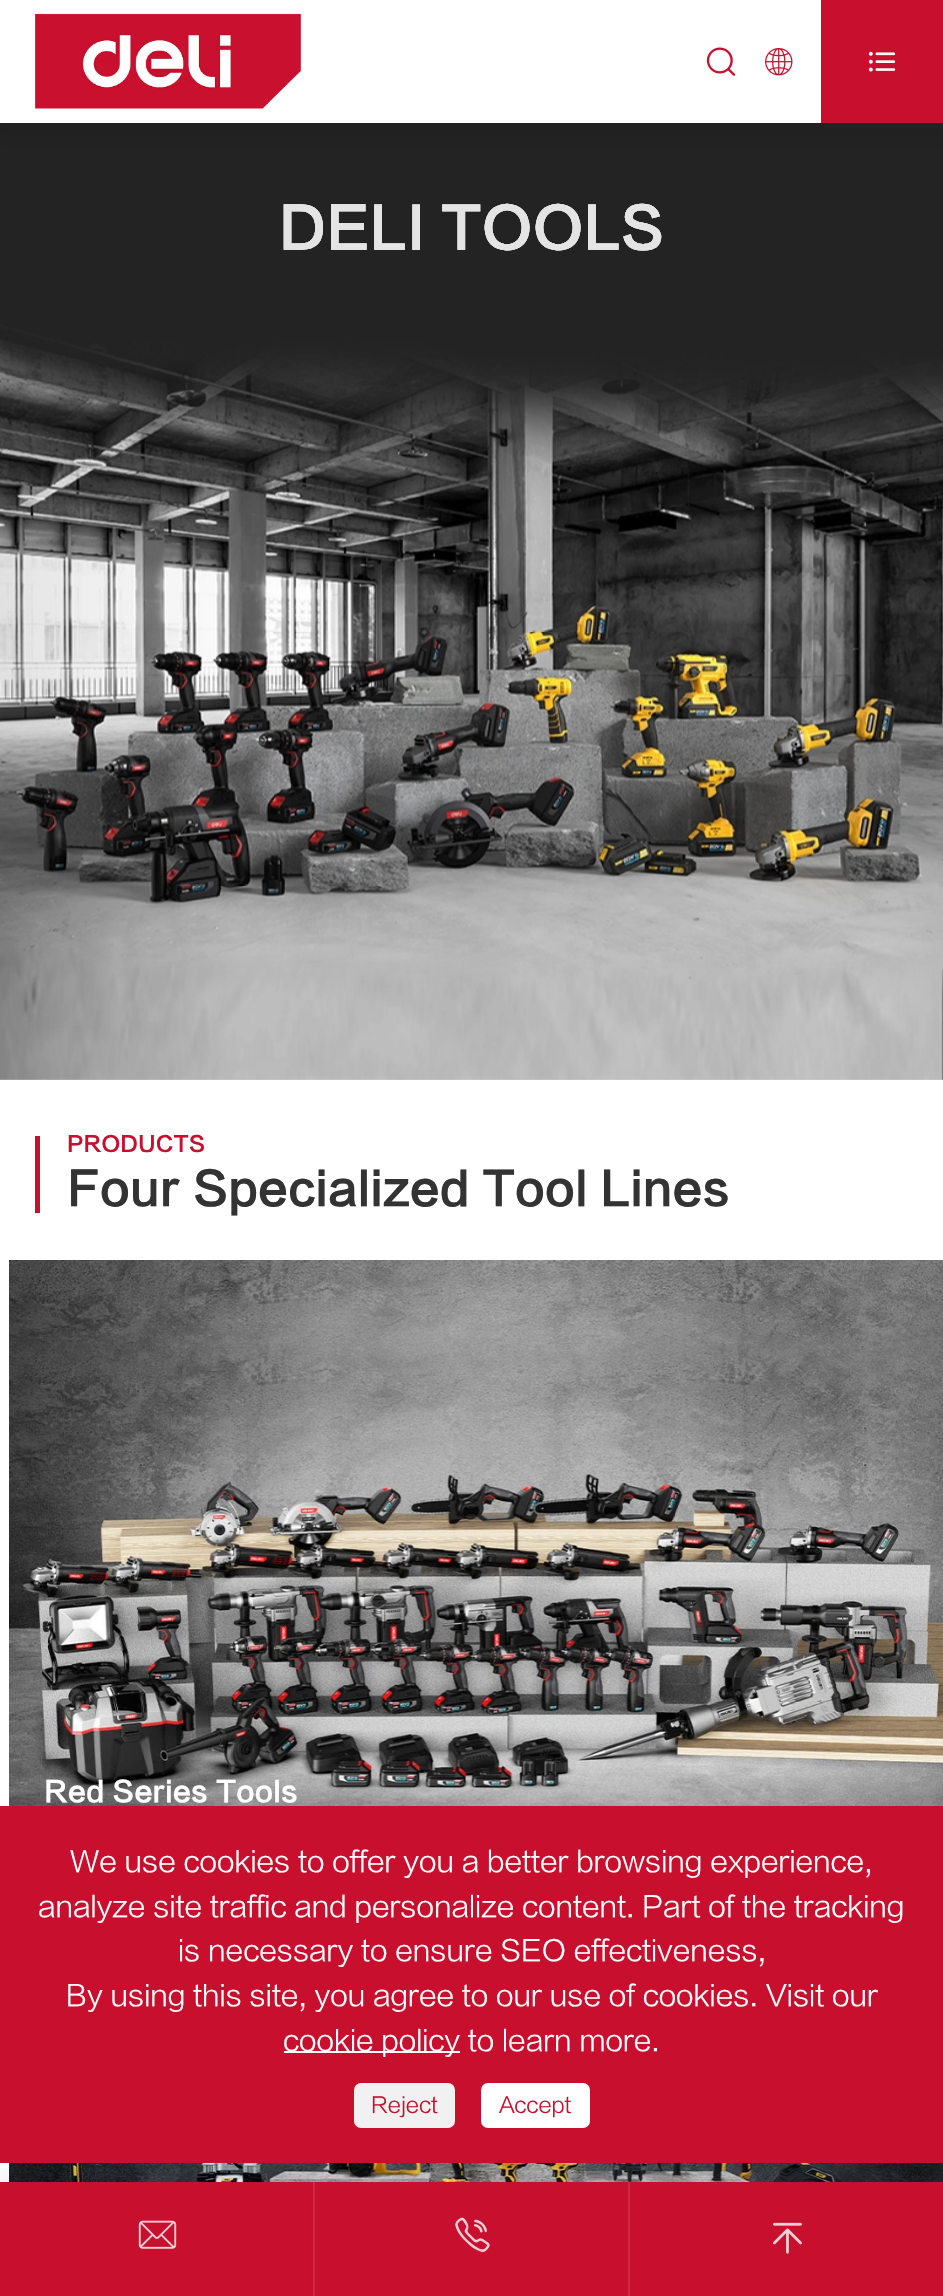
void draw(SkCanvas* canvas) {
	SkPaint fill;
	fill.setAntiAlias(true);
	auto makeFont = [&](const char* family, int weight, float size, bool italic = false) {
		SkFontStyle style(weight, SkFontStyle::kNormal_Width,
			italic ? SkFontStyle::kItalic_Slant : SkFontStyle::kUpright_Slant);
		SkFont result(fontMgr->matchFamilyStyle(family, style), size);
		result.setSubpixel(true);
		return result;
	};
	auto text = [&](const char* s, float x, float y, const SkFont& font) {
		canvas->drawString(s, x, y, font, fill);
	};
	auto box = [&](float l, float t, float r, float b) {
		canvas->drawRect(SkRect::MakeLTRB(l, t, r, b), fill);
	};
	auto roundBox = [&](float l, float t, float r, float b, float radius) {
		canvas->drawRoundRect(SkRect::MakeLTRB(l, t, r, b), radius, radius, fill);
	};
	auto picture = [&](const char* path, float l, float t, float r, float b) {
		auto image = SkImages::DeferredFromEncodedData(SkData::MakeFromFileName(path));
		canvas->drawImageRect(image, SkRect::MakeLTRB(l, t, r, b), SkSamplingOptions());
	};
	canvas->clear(0xFFFFFFFF);
	picture("image4.png", 0, 123, 943, 1080);
	fill.setColor(0x0F000000);
	fill.setMaskFilter(SkMaskFilter::MakeBlur(kNormal_SkBlurStyle, 9));
	canvas->drawRect(SkRect::MakeLTRB(-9, -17, 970, 140), fill);
	fill.setMaskFilter(nullptr);
	fill.setColor(0xFFFFFFFF);
	box(0, 0, 821, 123);
	picture("image0.png", 35, 13, 301, 109);
	picture("image1.png", 706, 47, 736, 76);
	picture("image2.png", 765, 48, 793, 76);
	fill.setColor(0xFFC8102E);
	box(821, 0, 943, 123);
	picture("image3.png", 868, 51, 896, 72);
	picture("image5.png", 0, 203, 943, 1080);
	box(35, 1136, 40, 1213);
	picture("image6.png", 9, 1260, 943, 1806);
	picture("image7.png", 9, 2163, 943, 2182);
	fill.setColor(0x0F000000);
	fill.setMaskFilter(SkMaskFilter::MakeBlur(kNormal_SkBlurStyle, 9));
	canvas->drawRect(SkRect::MakeLTRB(-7, 2175, 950, 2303), fill);
	fill.setMaskFilter(nullptr);
	fill.setColor(0xFFC8102E);
	box(0, 1806, 943, 2163);
	fill.setColor(0xFFFFFFFF);
	box(284, 2051, 460, 2053);
	fill.setColor(0xFFF1F1F1);
	roundBox(354, 2083, 455, 2128, 7);
	fill.setColor(0xFFFFFFFF);
	roundBox(481, 2083, 590, 2128, 7);
	fill.setColor(0xFFC8102E);
	box(0, 2182, 943, 2296);
	fill.setColor(0xFFCE2843);
	box(313, 2182, 315, 2296);
	picture("image8.png", 138, 2220, 177, 2249);
	box(628, 2182, 630, 2296);
	picture("image9.png", 455, 2217, 490, 2252);
	picture("image10.png", 773, 2222, 802, 2254);
	auto font1 = makeFont("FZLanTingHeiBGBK", 400, 56);
	fill.setColor(0xFFFFFFFF);
	text("DELI TOOLS", 279, 247, font1);
	fill.setColor(0xFFE4E4E4);
	text("DELI TOOLS", 279, 247, font1);
	auto font2 = makeFont("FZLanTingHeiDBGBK", 400, 21);
	fill.setColor(0xFFC8102E);
	text("PRODUCTS", 67, 1151, font2);
	auto font3 = makeFont("FZLanTingHeiBGBK", 400, 45.5f);
	fill.setColor(0xFF333333);
	text("Four Specialized Tool Lines", 67, 1204, font3);
	auto font4 = makeFont("FZLanTingHeiBGBK", 400, 28);
	fill.setColor(0xFFFFFFFF);
	text("Red Series Tools", 44, 1801, font4);
	auto font5 = makeFont("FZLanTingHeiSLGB", 400, 28);
	text("We use cookies to offer you a better browsing experience,", 70, 1871, font5);
	text("analyze site traffic and personalize content. Part of the tracking", 38, 1916, font5);
	text("is necessary to ensure SEO effectiveness,", 178, 1960, font5);
	text("By using this site, you agree to our use of cookies. Visit our", 66, 2005, font5);
	text("cookie policy to learn more.", 283, 2050, font5);
	auto font6 = makeFont("FZLanTingHeiSLGB", 400, 21);
	fill.setColor(0xFFC8102E);
	text("Reject", 371, 2112, font6);
	text("Accept", 499, 2112, font6);
}
